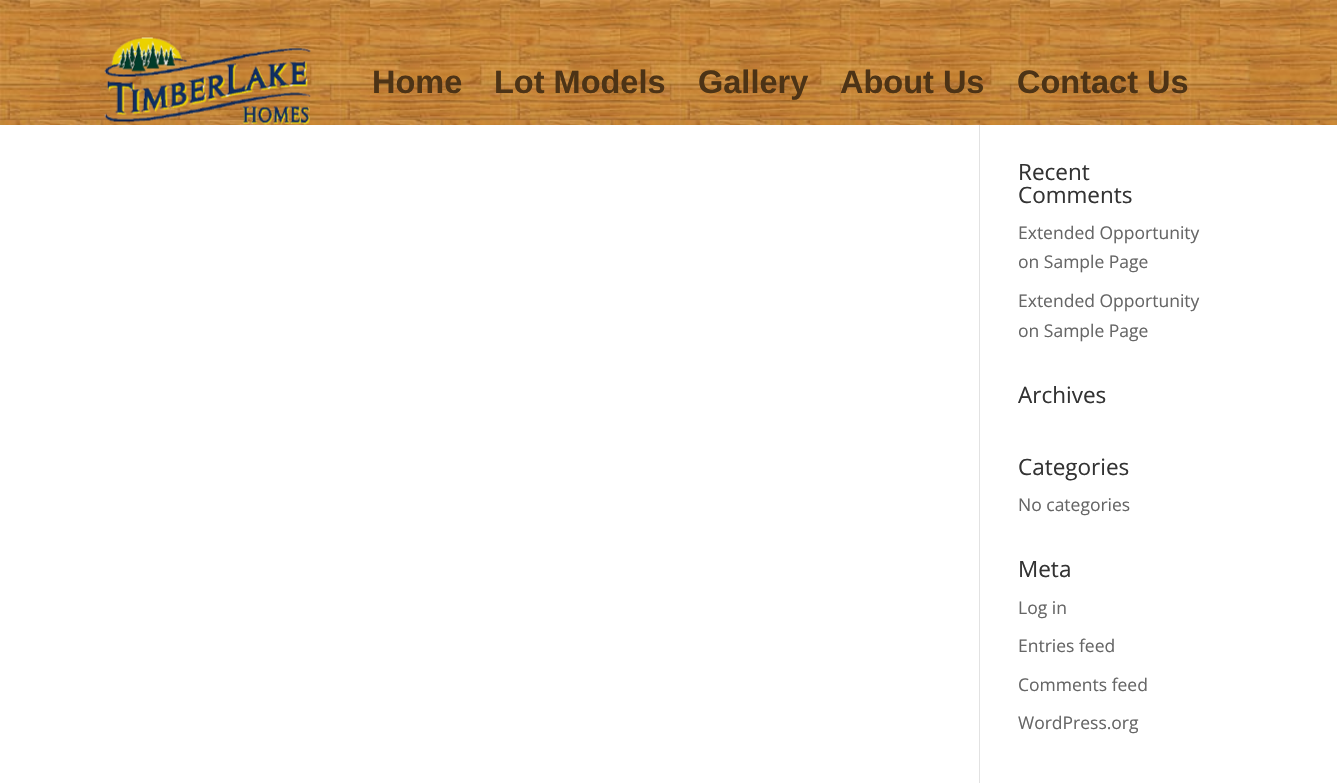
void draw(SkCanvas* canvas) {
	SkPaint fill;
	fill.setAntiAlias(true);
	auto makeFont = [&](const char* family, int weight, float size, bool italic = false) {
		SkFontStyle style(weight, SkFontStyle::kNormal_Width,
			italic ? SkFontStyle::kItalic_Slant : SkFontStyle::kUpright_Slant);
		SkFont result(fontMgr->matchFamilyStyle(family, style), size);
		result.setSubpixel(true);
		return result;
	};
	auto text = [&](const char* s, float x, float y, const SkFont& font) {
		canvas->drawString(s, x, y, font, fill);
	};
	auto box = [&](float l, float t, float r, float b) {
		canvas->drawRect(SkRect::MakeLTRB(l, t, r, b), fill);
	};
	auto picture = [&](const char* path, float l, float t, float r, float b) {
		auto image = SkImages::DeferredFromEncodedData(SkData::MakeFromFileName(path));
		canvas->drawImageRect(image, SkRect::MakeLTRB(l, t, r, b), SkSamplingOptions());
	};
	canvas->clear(0xFFFFFFFF);
	picture("image0.png", 0, 0, 1337, 125);
	picture("image1.png", 104, 37, 311, 125);
	fill.setColor(0xFFE2E2E2);
	box(979, 125, 980, 783);
	auto font1 = makeFont("Liberation Sans", 700, 32.5f);
	fill.setColor(0xFF4C3316);
	text("Home", 372, 93, font1);
	text("Lot Models", 494, 93, font1);
	text("Gallery", 698, 93, font1);
	text("About Us", 840, 93, font1);
	text("Contact Us", 1017, 93, font1);
	auto font2 = makeFont("Open Sans", 400, 22.5f);
	fill.setColor(0xFF333333);
	text("Recent", 1018, 180, font2);
	text("Comments", 1018, 203, font2);
	auto font3 = makeFont("Open Sans", 400, 17.5f);
	fill.setColor(0xFF666666);
	text("Extended Opportunity", 1018, 239, font3);
	text("on Sample Page", 1018, 268, font3);
	text("Extended Opportunity", 1018, 307, font3);
	text("on Sample Page", 1018, 337, font3);
	fill.setColor(0xFF333333);
	text("Archives", 1018, 403, font2);
	text("Categories", 1018, 475, font2);
	fill.setColor(0xFF666666);
	text("No categories", 1018, 511, font3);
	fill.setColor(0xFF333333);
	text("Meta", 1018, 577, font2);
	fill.setColor(0xFF666666);
	text("Log in", 1018, 614, font3);
	text("Entries feed", 1018, 652, font3);
	text("Comments feed", 1018, 691, font3);
	text("WordPress.org", 1018, 729, font3);
}
